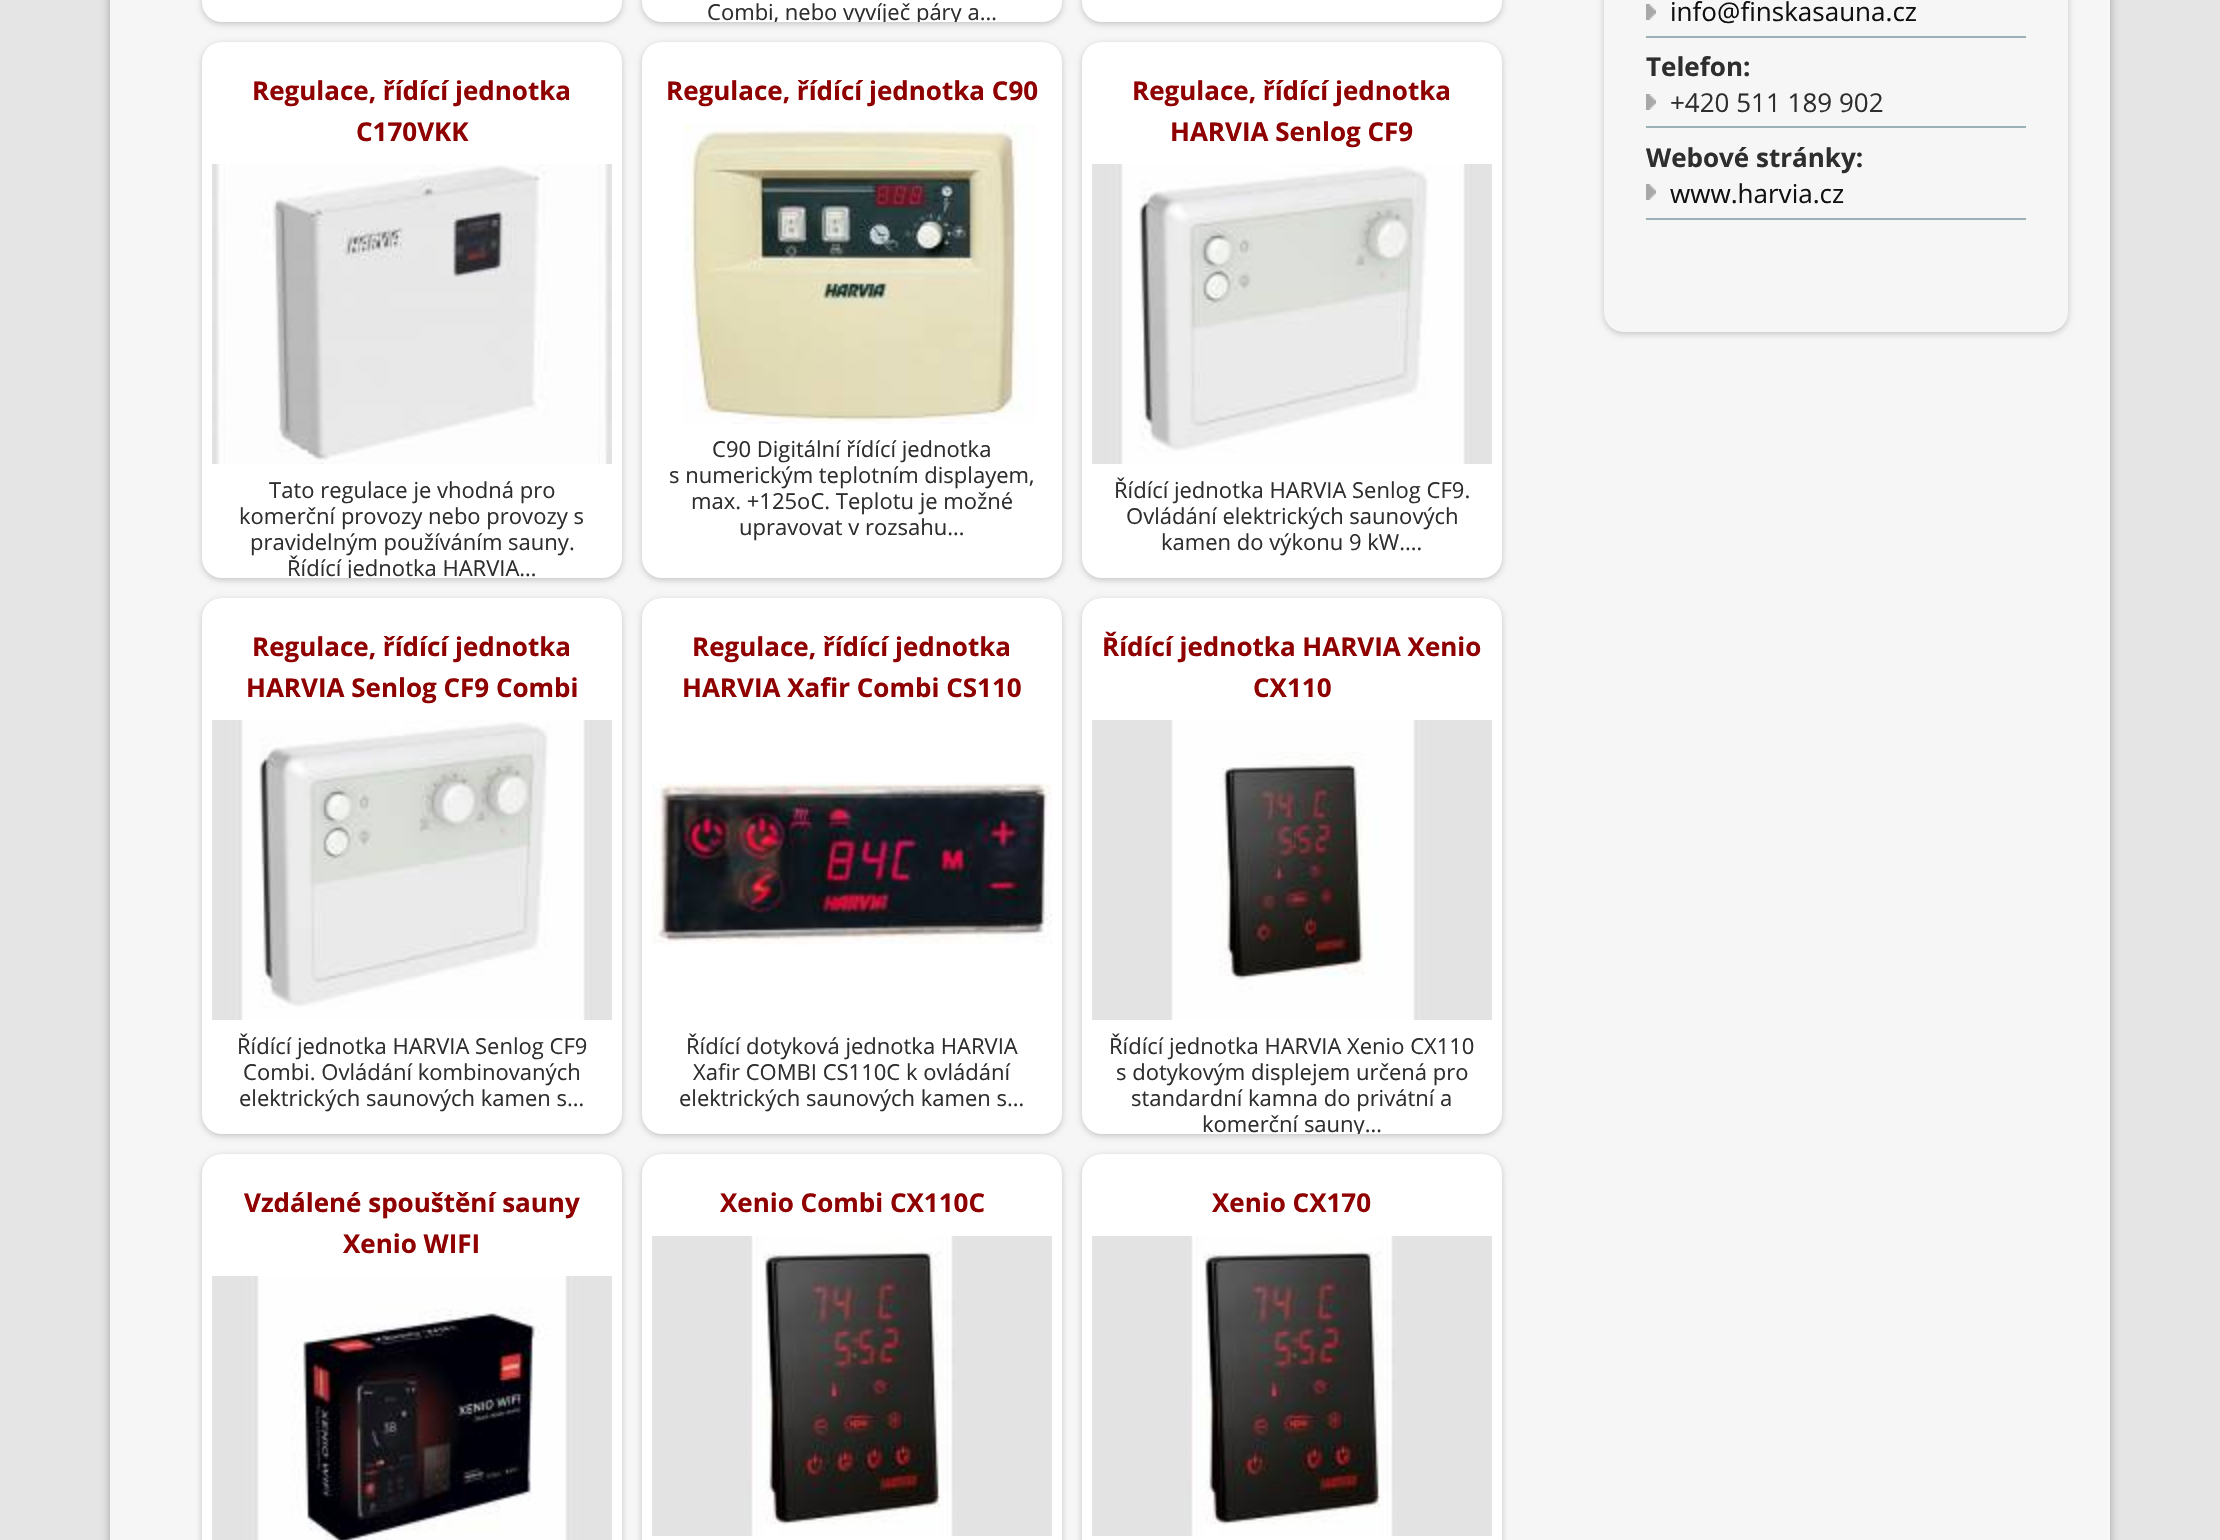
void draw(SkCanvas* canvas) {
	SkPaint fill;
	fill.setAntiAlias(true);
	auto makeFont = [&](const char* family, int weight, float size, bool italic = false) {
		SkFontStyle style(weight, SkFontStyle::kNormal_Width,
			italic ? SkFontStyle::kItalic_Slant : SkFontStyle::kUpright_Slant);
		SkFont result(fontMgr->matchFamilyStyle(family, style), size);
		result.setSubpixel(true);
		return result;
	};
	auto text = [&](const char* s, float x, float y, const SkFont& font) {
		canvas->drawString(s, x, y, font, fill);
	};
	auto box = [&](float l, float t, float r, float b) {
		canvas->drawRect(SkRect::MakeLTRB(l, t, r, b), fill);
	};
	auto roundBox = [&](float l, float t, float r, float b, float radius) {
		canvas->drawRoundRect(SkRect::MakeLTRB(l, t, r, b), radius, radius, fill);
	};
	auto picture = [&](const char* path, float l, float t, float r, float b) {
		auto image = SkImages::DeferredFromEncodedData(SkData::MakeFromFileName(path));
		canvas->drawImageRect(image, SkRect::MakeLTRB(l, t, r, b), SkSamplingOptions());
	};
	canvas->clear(0xFFE5E5E5);
	fill.setColor(0x4D000000);
	fill.setMaskFilter(SkMaskFilter::MakeBlur(kNormal_SkBlurStyle, 5));
	canvas->drawRoundRect(SkRect::MakeLTRB(110, -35, 2110, 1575), 20, 20, fill);
	fill.setMaskFilter(nullptr);
	fill.setColor(0xFFF6F6F6);
	box(110, 0, 2110, 1540);
	fill.setColor(0x33000000);
	fill.setMaskFilter(SkMaskFilter::MakeBlur(kNormal_SkBlurStyle, 3));
	canvas->drawRoundRect(SkRect::MakeLTRB(202, -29, 622, 24), 20, 20, fill);
	fill.setMaskFilter(nullptr);
	fill.setColor(0xFFFFFFFF);
	roundBox(202, -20, 622, 22, 20);
	fill.setColor(0x33000000);
	fill.setMaskFilter(SkMaskFilter::MakeBlur(kNormal_SkBlurStyle, 3));
	canvas->drawRoundRect(SkRect::MakeLTRB(642, -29, 1062, 24), 20, 20, fill);
	fill.setMaskFilter(nullptr);
	fill.setColor(0xFFFFFFFF);
	roundBox(642, -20, 1062, 22, 20);
	fill.setColor(0x33000000);
	fill.setMaskFilter(SkMaskFilter::MakeBlur(kNormal_SkBlurStyle, 3));
	canvas->drawRoundRect(SkRect::MakeLTRB(1082, -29, 1502, 24), 20, 20, fill);
	fill.setMaskFilter(nullptr);
	fill.setColor(0xFFFFFFFF);
	roundBox(1082, -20, 1502, 22, 20);
	fill.setColor(0x33000000);
	fill.setMaskFilter(SkMaskFilter::MakeBlur(kNormal_SkBlurStyle, 3));
	canvas->drawRoundRect(SkRect::MakeLTRB(202, 44, 622, 580), 20, 20, fill);
	fill.setMaskFilter(nullptr);
	fill.setColor(0xFFFFFFFF);
	roundBox(202, 42, 622, 578, 20);
	picture("image0.png", 212, 164, 612, 464);
	fill.setColor(0x33000000);
	fill.setMaskFilter(SkMaskFilter::MakeBlur(kNormal_SkBlurStyle, 3));
	canvas->drawRoundRect(SkRect::MakeLTRB(642, 44, 1062, 580), 20, 20, fill);
	fill.setMaskFilter(nullptr);
	fill.setColor(0xFFFFFFFF);
	roundBox(642, 42, 1062, 578, 20);
	picture("image1.png", 683, 124, 1036, 424);
	fill.setColor(0x33000000);
	fill.setMaskFilter(SkMaskFilter::MakeBlur(kNormal_SkBlurStyle, 3));
	canvas->drawRoundRect(SkRect::MakeLTRB(1082, 44, 1502, 580), 20, 20, fill);
	fill.setMaskFilter(nullptr);
	fill.setColor(0xFFFFFFFF);
	roundBox(1082, 42, 1502, 578, 20);
	picture("image2.png", 1092, 164, 1492, 464);
	fill.setColor(0x33000000);
	fill.setMaskFilter(SkMaskFilter::MakeBlur(kNormal_SkBlurStyle, 3));
	canvas->drawRoundRect(SkRect::MakeLTRB(202, 600, 622, 1136), 20, 20, fill);
	fill.setMaskFilter(nullptr);
	fill.setColor(0xFFFFFFFF);
	roundBox(202, 598, 622, 1134, 20);
	picture("image3.png", 212, 720, 612, 1020);
	fill.setColor(0x33000000);
	fill.setMaskFilter(SkMaskFilter::MakeBlur(kNormal_SkBlurStyle, 3));
	canvas->drawRoundRect(SkRect::MakeLTRB(642, 600, 1062, 1136), 20, 20, fill);
	fill.setMaskFilter(nullptr);
	fill.setColor(0xFFFFFFFF);
	roundBox(642, 598, 1062, 1134, 20);
	picture("image4.png", 652, 782, 1052, 945);
	fill.setColor(0x33000000);
	fill.setMaskFilter(SkMaskFilter::MakeBlur(kNormal_SkBlurStyle, 3));
	canvas->drawRoundRect(SkRect::MakeLTRB(1082, 600, 1502, 1136), 20, 20, fill);
	fill.setMaskFilter(nullptr);
	fill.setColor(0xFFFFFFFF);
	roundBox(1082, 598, 1502, 1134, 20);
	picture("image5.png", 1092, 720, 1492, 1020);
	fill.setColor(0x33000000);
	fill.setMaskFilter(SkMaskFilter::MakeBlur(kNormal_SkBlurStyle, 3));
	canvas->drawRoundRect(SkRect::MakeLTRB(202, 1156, 622, 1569), 20, 20, fill);
	fill.setMaskFilter(nullptr);
	fill.setColor(0xFFFFFFFF);
	roundBox(202, 1154, 622, 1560, 20);
	picture("image6.png", 212, 1276, 612, 1540);
	fill.setColor(0x33000000);
	fill.setMaskFilter(SkMaskFilter::MakeBlur(kNormal_SkBlurStyle, 3));
	canvas->drawRoundRect(SkRect::MakeLTRB(642, 1156, 1062, 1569), 20, 20, fill);
	fill.setMaskFilter(nullptr);
	fill.setColor(0xFFFFFFFF);
	roundBox(642, 1154, 1062, 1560, 20);
	picture("image7.png", 652, 1236, 1052, 1536);
	fill.setColor(0x33000000);
	fill.setMaskFilter(SkMaskFilter::MakeBlur(kNormal_SkBlurStyle, 3));
	canvas->drawRoundRect(SkRect::MakeLTRB(1082, 1156, 1502, 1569), 20, 20, fill);
	fill.setMaskFilter(nullptr);
	fill.setColor(0xFFFFFFFF);
	roundBox(1082, 1154, 1502, 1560, 20);
	picture("image8.png", 1092, 1236, 1492, 1536);
	canvas->save();
	canvas->clipPath(SkPathBuilder(SkPathFillType::kEvenOdd).moveTo(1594, 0).lineTo(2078, 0).lineTo(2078, 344).lineTo(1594, 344).close().moveTo(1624, -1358).lineTo(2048, -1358).cubicTo(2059, -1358, 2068, -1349, 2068, -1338).lineTo(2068, 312).cubicTo(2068, 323, 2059, 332, 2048, 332).lineTo(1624, 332).cubicTo(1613, 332, 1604, 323, 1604, 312).lineTo(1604, -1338).cubicTo(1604, -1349, 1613, -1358, 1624, -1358).close().detach(), true);
	fill.setColor(0x33000000);
	fill.setMaskFilter(SkMaskFilter::MakeBlur(kNormal_SkBlurStyle, 3));
	canvas->drawRoundRect(SkRect::MakeLTRB(1604, -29, 2068, 334), 20, 20, fill);
	fill.setMaskFilter(nullptr);
	canvas->restore();
	picture("image9.png", 1646, 4, 1656, 20);
	fill.setColor(0xFF9BB1B6);
	box(1646, 36, 2026, 38);
	picture("image9.png", 1646, 94, 1656, 110);
	box(1646, 126, 2026, 128);
	picture("image9.png", 1646, 184, 1656, 200);
	box(1646, 218, 2026, 220);
	canvas->save();
	canvas->clipPath(SkPathBuilder().moveTo(662, -514).lineTo(1042, -514).cubicTo(1053, -514, 1062, -505, 1062, -494).lineTo(1062, 2).cubicTo(1062, 13, 1053, 22, 1042, 22).lineTo(662, 22).cubicTo(651, 22, 642, 13, 642, 2).lineTo(642, -494).cubicTo(642, -505, 651, -514, 662, -514).close().detach(), true);
	auto font1 = makeFont("Open Sans", 400, 22);
	fill.setColor(0xFF2E2E2E);
	text("Combi, nebo vyvíječ páry a…", 707, 20, font1);
	canvas->restore();
	auto font2 = makeFont("Open Sans", 700, 26);
	fill.setColor(0xFF8F0000);
	text("Regulace, řídící jednotka", 252, 100, font2);
	text("C170VKK", 356, 141, font2);
	fill.setColor(0xFF2E2E2E);
	text("Tato regulace je vhodná pro", 269, 498, font1);
	text("komerční provozy nebo provozy s", 239, 524, font1);
	text("pravidelným používáním sauny.", 250, 550, font1);
	canvas->save();
	canvas->clipPath(SkPathBuilder().moveTo(222, 42).lineTo(602, 42).cubicTo(613, 42, 622, 51, 622, 62).lineTo(622, 558).cubicTo(622, 569, 613, 578, 602, 578).lineTo(222, 578).cubicTo(211, 578, 202, 569, 202, 558).lineTo(202, 62).cubicTo(202, 51, 211, 42, 222, 42).close().detach(), true);
	text("Řídící jednotka HARVIA…", 287, 576, font1);
	canvas->restore();
	fill.setColor(0xFF8F0000);
	text("Regulace, řídící jednotka C90", 666, 100, font2);
	fill.setColor(0xFF2E2E2E);
	text("C90 Digitální řídící jednotka", 712, 457, font1);
	text("s numerickým teplotním displayem,", 669, 483, font1);
	text("max. +125oC. Teplotu je možné", 691, 509, font1);
	text("upravovat v rozsahu…", 739, 535, font1);
	fill.setColor(0xFF8F0000);
	text("Regulace, řídící jednotka", 1132, 100, font2);
	text("HARVIA Senlog CF9", 1170, 141, font2);
	fill.setColor(0xFF2E2E2E);
	text("Řídící jednotka HARVIA Senlog CF9.", 1114, 498, font1);
	text("Ovládání elektrických saunových", 1126, 524, font1);
	text("kamen do výkonu 9 kW.…", 1161, 550, font1);
	fill.setColor(0xFF8F0000);
	text("Regulace, řídící jednotka", 252, 656, font2);
	text("HARVIA Senlog CF9 Combi", 246, 697, font2);
	fill.setColor(0xFF2E2E2E);
	text("Řídící jednotka HARVIA Senlog CF9", 237, 1054, font1);
	text("Combi. Ovládání kombinovaných", 243, 1080, font1);
	text("elektrických saunových kamen s…", 239, 1106, font1);
	fill.setColor(0xFF8F0000);
	text("Regulace, řídící jednotka", 692, 656, font2);
	text("HARVIA Xafir Combi CS110", 682, 697, font2);
	fill.setColor(0xFF2E2E2E);
	text("Řídící dotyková jednotka HARVIA", 686, 1054, font1);
	text("Xafir COMBI CS110C k ovládání", 693, 1080, font1);
	text("elektrických saunových kamen s…", 679, 1106, font1);
	fill.setColor(0xFF8F0000);
	text("Řídící jednotka HARVIA Xenio", 1102, 656, font2);
	text("CX110", 1253, 697, font2);
	fill.setColor(0xFF2E2E2E);
	text("Řídící jednotka HARVIA Xenio CX110", 1109, 1054, font1);
	text("s dotykovým displejem určená pro", 1116, 1080, font1);
	text("standardní kamna do privátní a", 1131, 1106, font1);
	canvas->save();
	canvas->clipPath(SkPathBuilder().moveTo(1102, 598).lineTo(1482, 598).cubicTo(1493, 598, 1502, 607, 1502, 618).lineTo(1502, 1114).cubicTo(1502, 1125, 1493, 1134, 1482, 1134).lineTo(1102, 1134).cubicTo(1091, 1134, 1082, 1125, 1082, 1114).lineTo(1082, 618).cubicTo(1082, 607, 1091, 598, 1102, 598).close().detach(), true);
	text("komerční sauny…", 1202, 1132, font1);
	canvas->restore();
	fill.setColor(0xFF8F0000);
	text("Vzdálené spouštění sauny", 244, 1212, font2);
	text("Xenio WIFI", 343, 1253, font2);
	text("Xenio Combi CX110C", 720, 1212, font2);
	text("Xenio CX170", 1212, 1212, font2);
	auto font3 = makeFont("Open Sans", 400, 26);
	fill.setColor(0xFF111111);
	text("info@finskasauna.cz", 1670, 21, font3);
	fill.setColor(0xFF2E2E2E);
	text("Telefon:", 1646, 76, font2);
	text("+420 511 189 902", 1670, 112, font3);
	text("Webové stránky:", 1646, 167, font2);
	fill.setColor(0xFF111111);
	text("www.harvia.cz", 1670, 203, font3);
}
